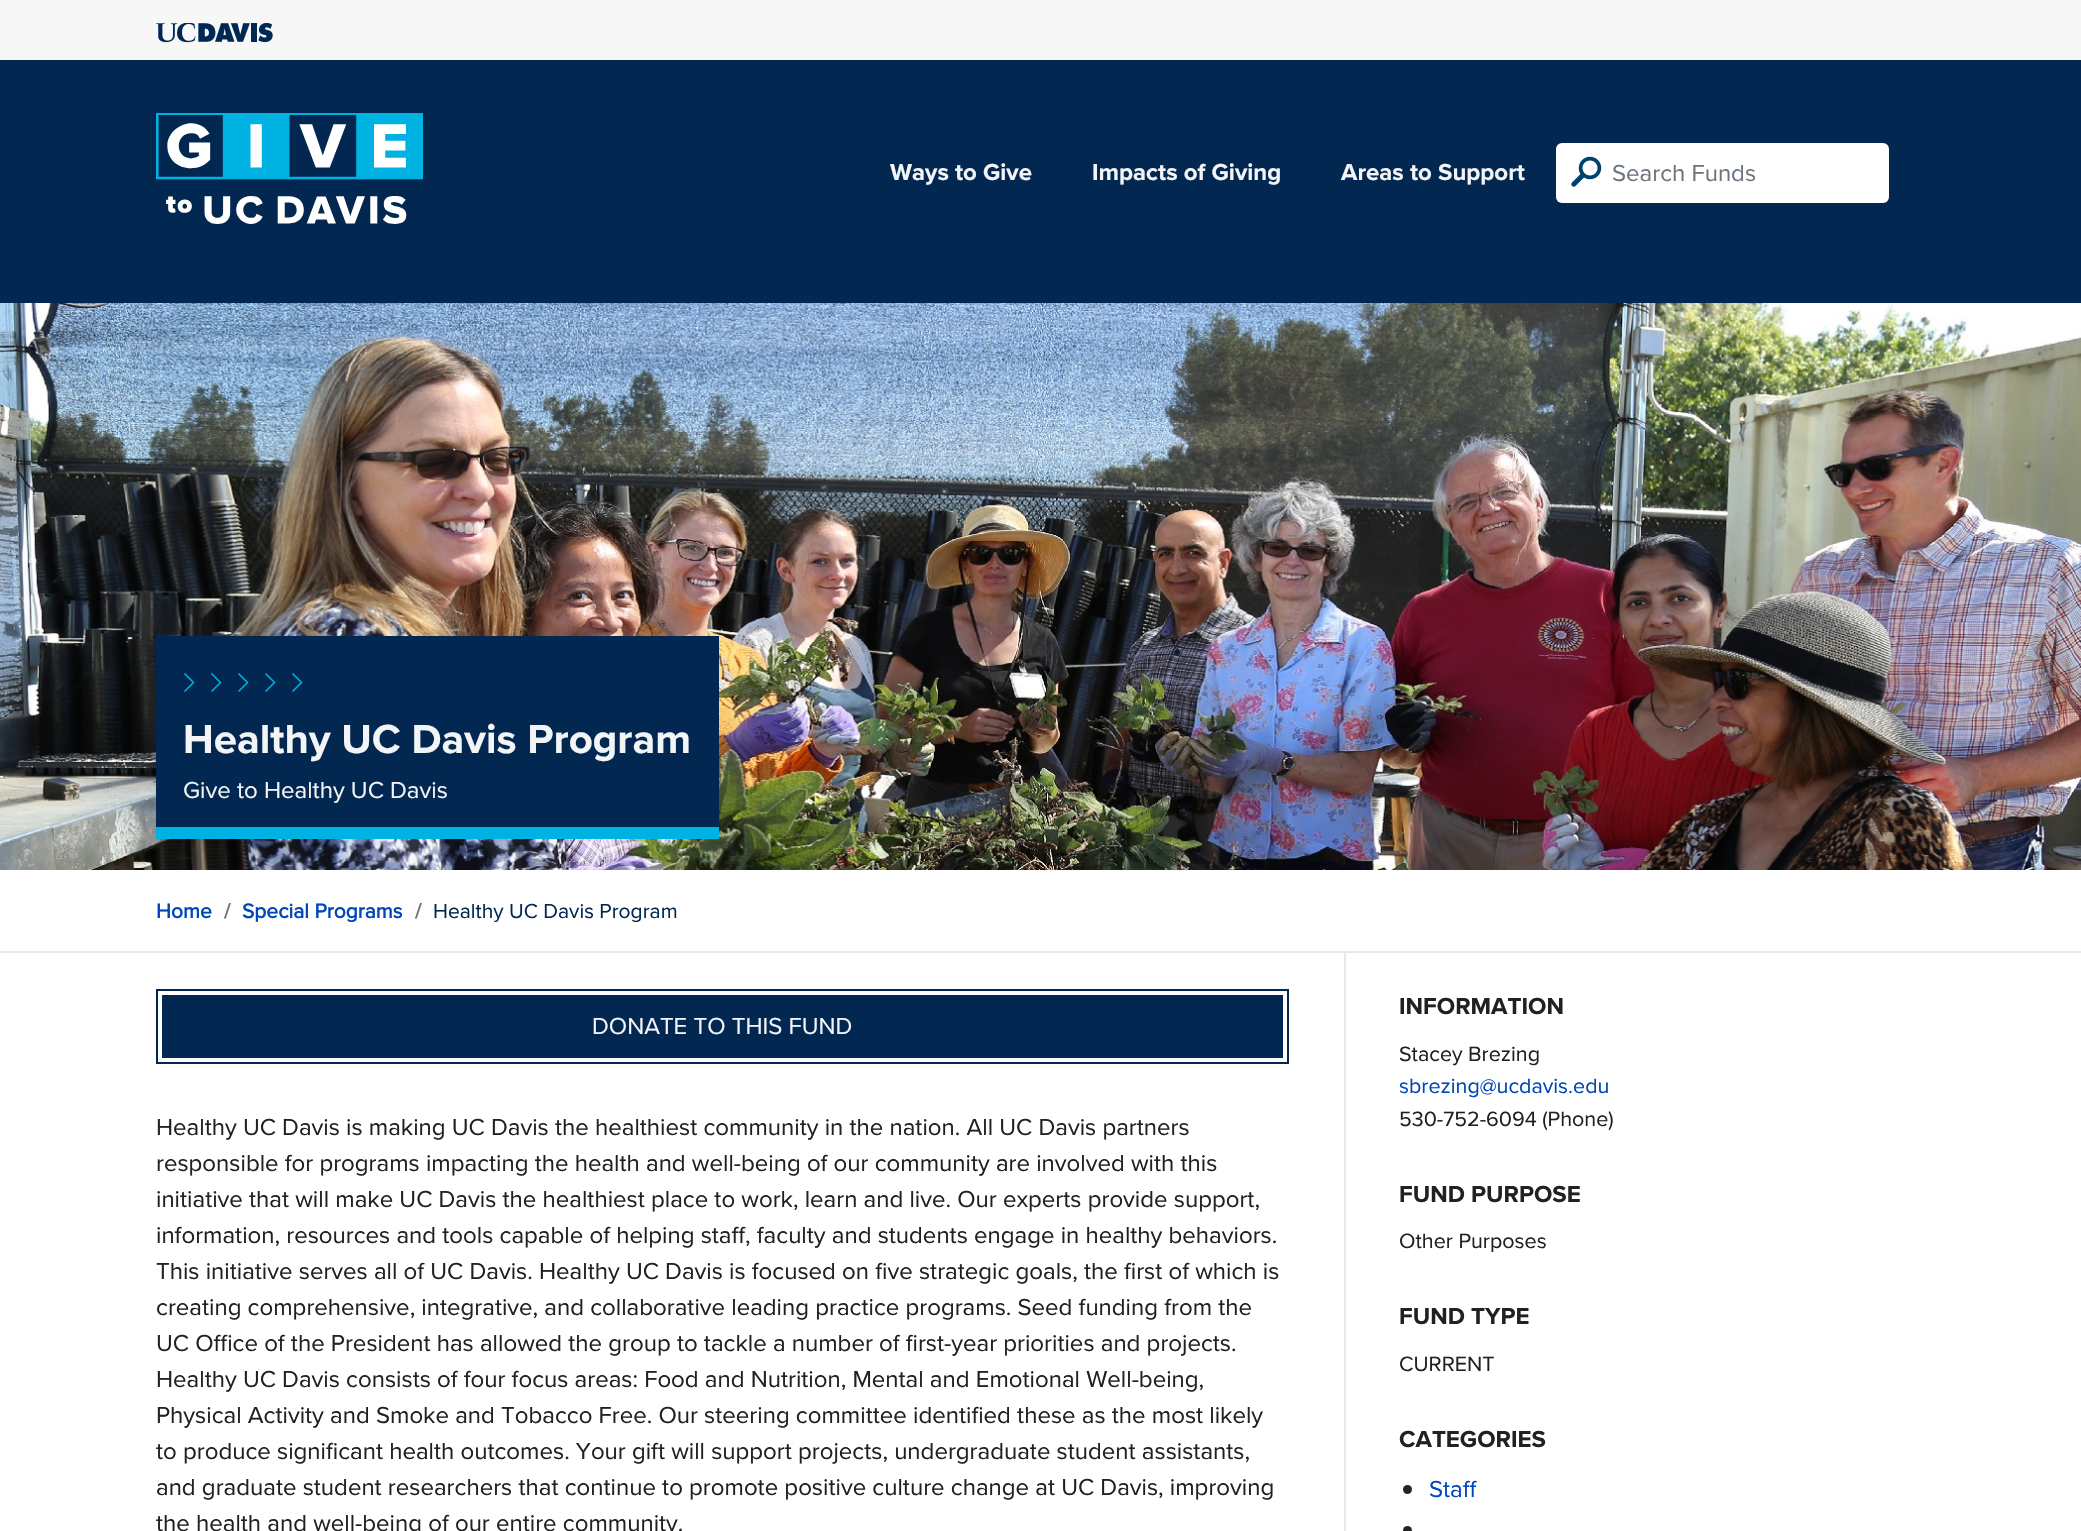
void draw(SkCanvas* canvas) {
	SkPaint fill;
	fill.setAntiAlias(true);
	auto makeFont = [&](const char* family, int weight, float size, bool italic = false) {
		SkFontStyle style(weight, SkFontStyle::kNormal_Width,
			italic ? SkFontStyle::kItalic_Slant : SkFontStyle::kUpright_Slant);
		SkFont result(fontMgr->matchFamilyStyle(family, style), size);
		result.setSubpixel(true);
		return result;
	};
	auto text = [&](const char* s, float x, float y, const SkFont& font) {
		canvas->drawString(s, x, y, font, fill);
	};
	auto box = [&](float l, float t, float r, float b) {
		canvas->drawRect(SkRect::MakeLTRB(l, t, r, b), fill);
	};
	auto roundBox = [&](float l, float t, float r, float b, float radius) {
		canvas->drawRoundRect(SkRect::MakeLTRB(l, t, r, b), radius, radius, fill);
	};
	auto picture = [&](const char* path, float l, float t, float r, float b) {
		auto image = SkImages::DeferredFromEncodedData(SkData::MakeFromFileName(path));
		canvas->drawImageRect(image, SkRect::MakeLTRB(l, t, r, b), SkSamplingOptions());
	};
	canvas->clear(0xFFFFFFFF);
	fill.setColor(0xFFF7F7F7);
	box(0, 0, 2081, 60);
	picture("image0.png", 156, 23, 273, 43);
	fill.setColor(0xFF022851);
	box(0, 60, 2081, 303);
	picture("image1.png", 156, 113, 423, 224);
	fill.setColor(0xFFFFFFFF);
	roundBox(1556, 143, 1889, 203, 6);
	picture("image2.png", 1571, 156, 1602, 187);
	picture("image3.png", 0, 303, 2081, 870);
	fill.setColor(0xFF022851);
	box(156, 636, 719, 827);
	fill.setColor(0xFF00B2E3);
	box(156, 827, 719, 839);
	fill.setStyle(SkPaint::kStroke_Style);
	fill.setStrokeWidth(1.5f);
	canvas->drawPath(SkPathBuilder().moveTo(211.5f, 691.5f).lineTo(220.5f, 682.5f).lineTo(211.5f, 673.5f).moveTo(184.5f, 691.5f).lineTo(193.5f, 682.5f).lineTo(184.5f, 673.5f).detach(), fill);
	canvas->drawPath(SkPathBuilder().moveTo(238.5f, 691.5f).lineTo(247.5f, 682.5f).lineTo(238.5f, 673.5f).detach(), fill);
	canvas->drawPath(SkPathBuilder().moveTo(292.5f, 691.5f).lineTo(301.5f, 682.5f).lineTo(292.5f, 673.5f).moveTo(265.5f, 691.5f).lineTo(274.5f, 682.5f).lineTo(265.5f, 673.5f).detach(), fill);
	fill.setStyle(SkPaint::kFill_Style);
	fill.setColor(0xFFE1E9F0);
	box(0, 951, 2081, 953);
	fill.setStyle(SkPaint::kStroke_Style);
	fill.setStrokeWidth(2);
	fill.setColor(0xFF022851);
	canvas->drawRect(SkRect::MakeLTRB(157, 990, 1288, 1063), fill);
	fill.setStyle(SkPaint::kFill_Style);
	box(162, 995, 1283, 1058);
	fill.setColor(0xFFE1E9F0);
	box(1344, 953, 1346, 1531);
	fill.setColor(0xFF212529);
	canvas->drawCircle(1407.5f, 1489.5f, 4.5f, fill);
	canvas->drawCircle(1407.5f, 1530.5f, 4.5f, fill);
	auto font1 = makeFont("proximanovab", 700, 24);
	fill.setColor(0xFFF2F4F6);
	text("Ways to Give", 890, 180, font1);
	text("Impacts of Giving", 1092, 180, font1);
	text("Areas to Support", 1341, 180, font1);
	auto font2 = makeFont("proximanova", 400, 24);
	fill.setColor(0xFF6C757D);
	text("Search Funds", 1612, 181, font2);
	auto font3 = makeFont("proximanovab", 700, 42);
	fill.setColor(0xFFF2F4F6);
	text("Healthy UC Davis Program", 183, 753, font3);
	text("Give to Healthy UC Davis", 183, 798, font2);
	auto font4 = makeFont("proximanova", 700, 21);
	fill.setColor(0xFF0047BA);
	text("Home", 156, 918, font4);
	fill.setColor(0xFF6C757D);
	text("/", 224, 918, font4);
	fill.setColor(0xFF0047BA);
	text("Special Programs", 242, 918, font4);
	fill.setColor(0xFF6C757D);
	text("/", 415, 918, font4);
	auto font5 = makeFont("proximanova", 400, 21);
	fill.setColor(0xFF022851);
	text("Healthy UC Davis Program", 433, 918, font5);
	fill.setColor(0xFFF2F4F6);
	text("DONATE TO THIS FUND", 592, 1034, font2);
	fill.setColor(0xFF212121);
	text("Healthy UC Davis is making UC Davis the healthiest community in the nation. All UC Davis partners", 156, 1135, font2);
	text("responsible for programs impacting the health and well-being of our community are involved with this", 156, 1171, font2);
	text("initiative that will make UC Davis the healthiest place to work, learn and live. Our experts provide support,", 156, 1207, font2);
	text("information, resources and tools capable of helping staff, faculty and students engage in healthy behaviors.", 156, 1243, font2);
	text("This initiative serves all of UC Davis. Healthy UC Davis is focused on five strategic goals, the first of which is", 156, 1279, font2);
	text("creating comprehensive, integrative, and collaborative leading practice programs. Seed funding from the", 156, 1315, font2);
	text("UC Office of the President has allowed the group to tackle a number of first-year priorities and projects.", 156, 1351, font2);
	text("Healthy UC Davis consists of four focus areas: Food and Nutrition, Mental and Emotional Well-being,", 156, 1387, font2);
	text("Physical Activity and Smoke and Tobacco Free. Our steering committee identified these as the most likely", 156, 1423, font2);
	text("to produce significant health outcomes. Your gift will support projects, undergraduate student assistants,", 156, 1459, font2);
	text("and graduate student researchers that continue to promote positive culture change at UC Davis, improving", 156, 1495, font2);
	text("the health and well-being of our entire community.", 156, 1531, font2);
	text("INFORMATION", 1399, 1014, font1);
	auto font6 = makeFont("proximanova", 400, 21.5f);
	text("Stacey Brezing", 1399, 1061, font6);
	fill.setColor(0xFF0047BA);
	text("sbrezing@ucdavis.edu", 1399, 1093, font6);
	fill.setColor(0xFF212121);
	text("530-752-6094 (Phone)", 1399, 1126, font6);
	text("FUND PURPOSE", 1399, 1202, font1);
	text("Other Purposes", 1399, 1248, font6);
	text("FUND TYPE", 1399, 1324, font1);
	text("CURRENT", 1399, 1371, font6);
	text("CATEGORIES", 1399, 1447, font1);
	fill.setColor(0xFF0047BA);
	text("Staff", 1429, 1497, font2);
}
